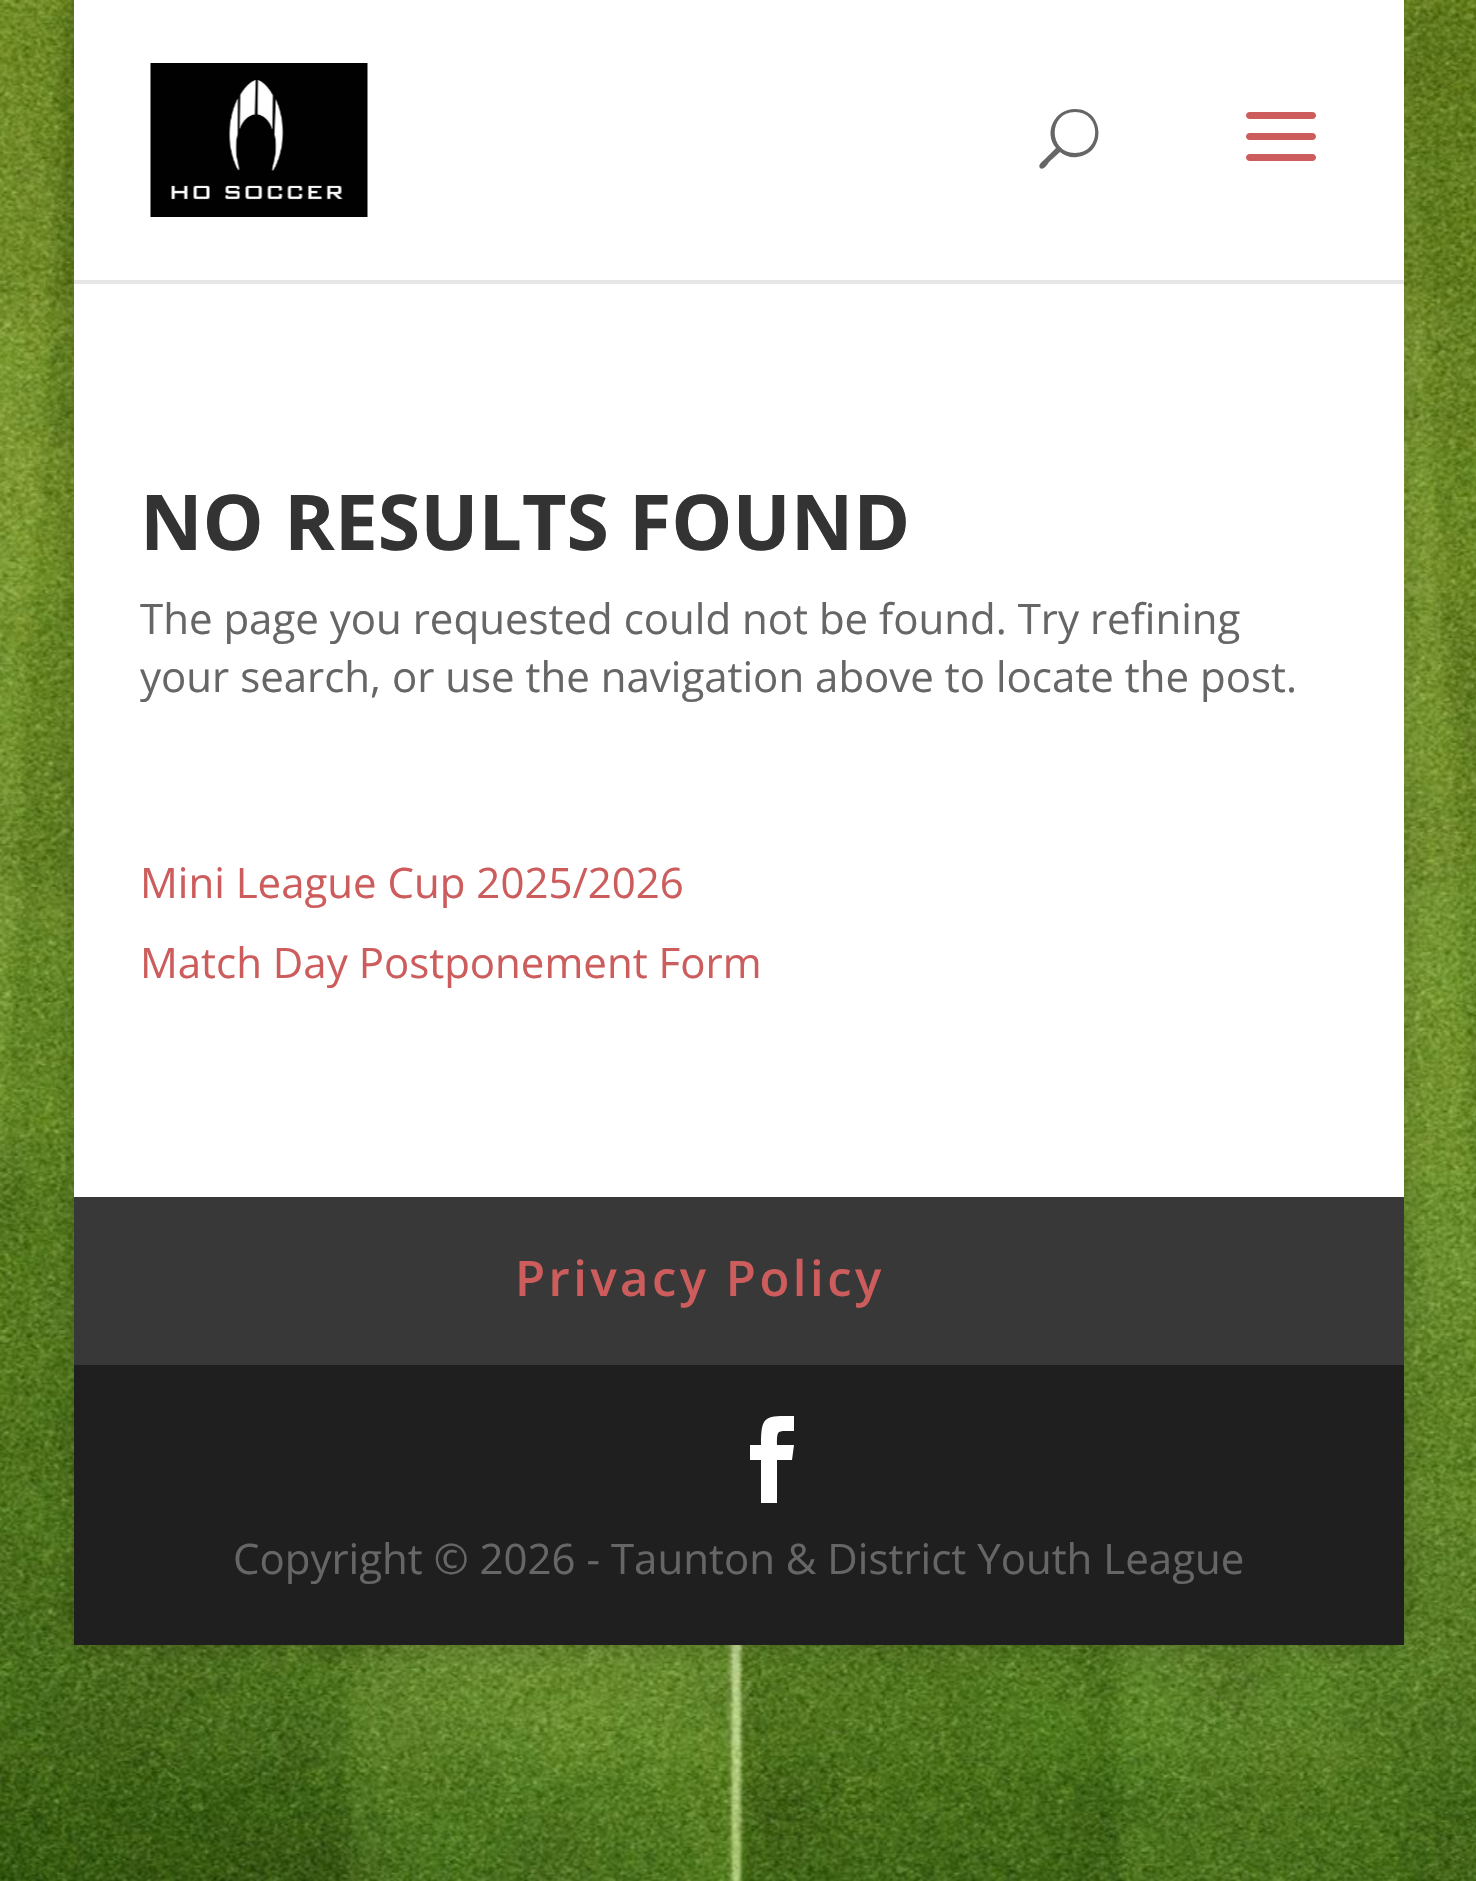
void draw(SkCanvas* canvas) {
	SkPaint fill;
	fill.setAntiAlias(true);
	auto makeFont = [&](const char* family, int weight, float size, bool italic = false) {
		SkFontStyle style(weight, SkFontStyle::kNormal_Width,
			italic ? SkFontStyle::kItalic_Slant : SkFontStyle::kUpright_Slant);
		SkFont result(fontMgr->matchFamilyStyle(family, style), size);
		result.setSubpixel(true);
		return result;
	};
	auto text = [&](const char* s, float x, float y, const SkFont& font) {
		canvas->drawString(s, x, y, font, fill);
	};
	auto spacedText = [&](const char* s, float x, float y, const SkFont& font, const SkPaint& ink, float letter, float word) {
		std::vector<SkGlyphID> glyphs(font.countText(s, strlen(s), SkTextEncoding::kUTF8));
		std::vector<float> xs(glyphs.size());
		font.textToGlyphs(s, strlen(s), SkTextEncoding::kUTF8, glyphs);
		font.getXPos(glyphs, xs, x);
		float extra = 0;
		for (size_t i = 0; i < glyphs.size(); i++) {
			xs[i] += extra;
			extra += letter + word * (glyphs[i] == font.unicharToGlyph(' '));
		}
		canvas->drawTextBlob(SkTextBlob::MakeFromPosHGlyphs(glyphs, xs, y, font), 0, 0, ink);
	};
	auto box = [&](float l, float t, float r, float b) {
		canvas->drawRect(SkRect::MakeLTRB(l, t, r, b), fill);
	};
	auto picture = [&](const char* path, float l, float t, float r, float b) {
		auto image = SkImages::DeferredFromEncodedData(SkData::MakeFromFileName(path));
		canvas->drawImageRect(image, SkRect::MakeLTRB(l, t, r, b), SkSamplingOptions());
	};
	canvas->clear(0xFFFFFFFF);
	picture("image0.png", 0, 0, 1476, 1881);
	fill.setColor(0x33000000);
	fill.setMaskFilter(SkMaskFilter::MakeBlur(kNormal_SkBlurStyle, 17.5f));
	canvas->drawRect(SkRect::MakeLTRB(74, 0, 1404, 1645), fill);
	fill.setMaskFilter(nullptr);
	fill.setColor(0xFFE6E6E6);
	canvas->drawPath(SkPathBuilder().moveTo(74, 280).lineTo(74, 284).lineTo(1404, 284).lineTo(1404, 4).lineTo(1404, 280).close().detach(), fill);
	fill.setColor(0xFFFFFFFF);
	box(74, 0, 1404, 280);
	picture("image1.png", 150, 63, 368, 217);
	fill.setColor(0xFF666666);
	canvas->drawPath(SkPathBuilder().moveTo(1075, 109).cubicTo(1055, 109, 1043, 132, 1056, 148).lineTo(1045, 159).cubicTo(1044, 160, 1037, 165, 1040, 168).cubicTo(1043, 171, 1048, 164, 1049, 162).lineTo(1060, 152).cubicTo(1065, 156, 1071, 158, 1077, 157).cubicTo(1107, 154, 1105, 109, 1075, 109).close().moveTo(1075, 153).cubicTo(1048, 153, 1048, 112, 1075, 112).cubicTo(1102, 112, 1102, 153, 1075, 153).close().detach(), fill);
	picture("image2.png", 1246, 112, 1316, 161);
	fill.setColor(0xFFFFFFFF);
	box(74, 284, 1404, 1197);
	fill.setColor(0xFF383838);
	box(74, 1197, 1404, 1365);
	fill.setColor(0xFF1F1F1F);
	box(74, 1365, 1404, 1645);
	fill.setColor(0xFFFFFFFF);
	canvas->drawPath(SkPathBuilder().moveTo(761, 1503).lineTo(777, 1503).lineTo(777, 1460).lineTo(792, 1460).lineTo(794, 1445).lineTo(777, 1445).cubicTo(777, 1429, 777, 1431, 794, 1431).lineTo(794, 1416).cubicTo(765, 1416, 761, 1415, 761, 1445).lineTo(750, 1445).lineTo(750, 1460).lineTo(761, 1460).close().detach(), fill);
	auto font1 = makeFont("Open Sans", 700, 77);
	fill.setColor(0xFF333333);
	text("NO RESULTS FOUND", 140, 550, font1);
	auto font2 = makeFont("Open Sans", 400, 42);
	fill.setColor(0xFF666666);
	text("The page you requested could not be found. Try refining", 140, 634, font2);
	text("your search, or use the navigation above to locate the post.", 140, 692, font2);
	fill.setColor(0xFFCD5C5C);
	text("Mini League Cup 2025/2026", 140, 898, font2);
	text("Match Day Postponement Form", 140, 978, font2);
	auto font3 = makeFont("Open Sans", 600, 49);
	spacedText("Privacy Policy", 515, 1296, font3, fill, 3.5f, 0);
	fill.setColor(0xFF666666);
	text("Copyright © 2026 - Taunton & District Youth League", 233, 1574, font2);
}
